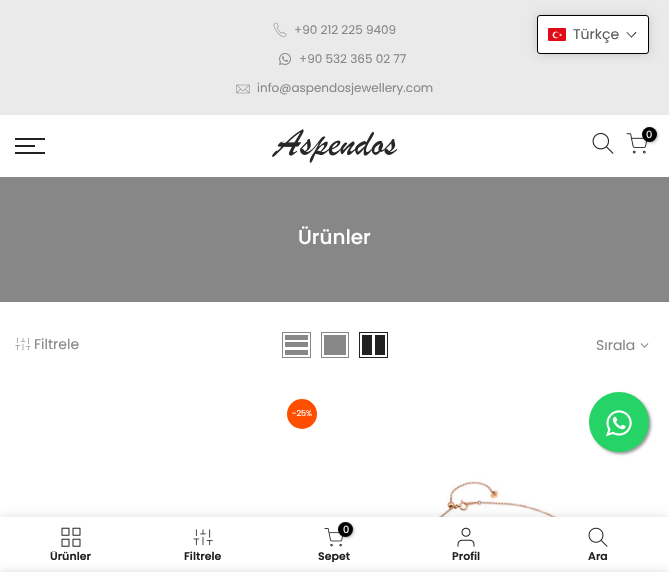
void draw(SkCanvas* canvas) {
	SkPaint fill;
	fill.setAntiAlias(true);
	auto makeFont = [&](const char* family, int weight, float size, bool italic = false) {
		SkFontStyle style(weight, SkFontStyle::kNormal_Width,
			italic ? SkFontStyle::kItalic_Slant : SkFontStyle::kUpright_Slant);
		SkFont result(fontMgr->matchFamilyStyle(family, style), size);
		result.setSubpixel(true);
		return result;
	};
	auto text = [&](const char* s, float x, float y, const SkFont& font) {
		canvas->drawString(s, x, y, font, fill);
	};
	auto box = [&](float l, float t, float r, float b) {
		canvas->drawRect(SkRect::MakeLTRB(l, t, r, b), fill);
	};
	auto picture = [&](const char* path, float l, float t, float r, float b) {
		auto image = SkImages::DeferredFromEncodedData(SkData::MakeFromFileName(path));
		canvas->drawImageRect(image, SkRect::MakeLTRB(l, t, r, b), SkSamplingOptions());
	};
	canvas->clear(0xFFFFFFFF);
	fill.setColor(0xFFEAEAEA);
	box(0, 0, 669, 115);
	picture("image0.png", 273, 22, 287, 38);
	picture("image1.png", 279, 53, 291, 65);
	picture("image2.png", 236, 84, 250, 94);
	picture("image3.png", 272, 129, 397, 163);
	picture("image4.png", 592, 132, 614, 154);
	picture("image5.png", 626, 133, 647, 154);
	fill.setColor(0x4D000000);
	fill.setMaskFilter(SkMaskFilter::MakeBlur(kNormal_SkBlurStyle, 1.5f));
	canvas->drawRoundRect(SkRect::MakeLTRB(643, 128, 658, 143), 7.5f, 7.5f, fill);
	fill.setMaskFilter(nullptr);
	fill.setColor(0xFF000000);
	canvas->drawCircle(649.5f, 134.5f, 7.5f, fill);
	fill.setColor(0xFF222222);
	box(15, 138, 45, 140);
	box(15, 145, 35, 147);
	box(15, 152, 45, 154);
	fill.setColor(0xFF878787);
	box(0, 177, 669, 302);
	picture("image6.png", 15, 337, 31, 351);
	fill.setStyle(SkPaint::kStroke_Style);
	fill.setStrokeWidth(1);
	canvas->drawRect(SkRect::MakeLTRB(282.5f, 332.5f, 310.5f, 357.5f), fill);
	fill.setStyle(SkPaint::kFill_Style);
	box(285, 350, 308, 355);
	box(285, 342, 308, 347);
	box(285, 335, 308, 340);
	fill.setStyle(SkPaint::kStroke_Style);
	canvas->drawRect(SkRect::MakeLTRB(321.5f, 332.5f, 348.5f, 357.5f), fill);
	fill.setStyle(SkPaint::kFill_Style);
	box(324, 335, 346, 355);
	fill.setStyle(SkPaint::kStroke_Style);
	fill.setColor(0xFF222222);
	canvas->drawRect(SkRect::MakeLTRB(359.5f, 332.5f, 387.5f, 357.5f), fill);
	fill.setStyle(SkPaint::kFill_Style);
	box(375, 335, 385, 355);
	box(362, 335, 372, 355);
	picture("image7.png", 640, 343, 649, 348);
	fill.setColor(0xFFFF4E00);
	canvas->drawCircle(302, 414, 15, fill);
	picture("image8.png", 390, 478, 606, 517);
	fill.setColor(0x26000000);
	fill.setMaskFilter(SkMaskFilter::MakeBlur(kNormal_SkBlurStyle, 5));
	canvas->drawRoundRect(SkRect::MakeLTRB(537, 15, 649, 54), 3, 3, fill);
	fill.setMaskFilter(nullptr);
	fill.setColor(0xFFFFFFFF);
	canvas->drawRoundRect(SkRect::MakeLTRB(537.5f, 15.5f, 648.5f, 53.5f), 2.5f, 2.5f, fill);
	fill.setStyle(SkPaint::kStroke_Style);
	fill.setColor(0xFF000000);
	canvas->drawRoundRect(SkRect::MakeLTRB(537.5f, 15.5f, 648.5f, 53.5f), 2.5f, 2.5f, fill);
	picture("image9.png", 548, 28, 566, 41);
	fill.setStyle(SkPaint::kFill_Style);
	fill.setColor(0xFF1A1A1A);
	canvas->drawPath(SkPathBuilder().moveTo(635.5f, 32).lineTo(636.5f, 32.5f).lineTo(631.5f, 37.5f).lineTo(631, 37).close().detach(), fill);
	canvas->drawPath(SkPathBuilder().moveTo(627, 32).lineTo(632, 37).lineTo(631.5f, 37.5f).lineTo(626.5f, 32.5f).close().detach(), fill);
	fill.setColor(0xFF999999);
	fill.setMaskFilter(SkMaskFilter::MakeBlur(kNormal_SkBlurStyle, 1.5f));
	canvas->drawRoundRect(SkRect::MakeLTRB(591, 394, 651, 454), 30, 30, fill);
	fill.setMaskFilter(nullptr);
	fill.setColor(0xFF25D366);
	canvas->drawCircle(619, 422, 30, fill);
	picture("image10.png", 606, 410, 632, 437);
	fill.setColor(0x1F000000);
	fill.setMaskFilter(SkMaskFilter::MakeBlur(kNormal_SkBlurStyle, 4.5f));
	canvas->drawRect(SkRect::MakeLTRB(0, 517, 669, 572), fill);
	fill.setMaskFilter(nullptr);
	fill.setColor(0xFFFFFFFF);
	box(0, 517, 669, 572);
	picture("image11.png", 61, 527, 81, 547);
	picture("image12.png", 193, 529, 213, 546);
	picture("image13.png", 324, 528, 343, 547);
	fill.setColor(0x4D000000);
	fill.setMaskFilter(SkMaskFilter::MakeBlur(kNormal_SkBlurStyle, 1.5f));
	canvas->drawRoundRect(SkRect::MakeLTRB(339, 523, 354, 538), 7.5f, 7.5f, fill);
	fill.setMaskFilter(nullptr);
	fill.setColor(0xFF000000);
	canvas->drawCircle(345.5f, 529.5f, 7.5f, fill);
	picture("image14.png", 457, 527, 475, 547);
	picture("image15.png", 588, 527, 608, 547);
	fill.setColor(0x24000000);
	fill.setMaskFilter(SkMaskFilter::MakeBlur(kNormal_SkBlurStyle, 4.5f));
	canvas->drawRect(SkRect::MakeLTRB(0, 572, 669, 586), fill);
	fill.setMaskFilter(nullptr);
	auto font1 = makeFont("Poppins", 400, 12);
	fill.setColor(0xFF878787);
	text("+90 212 225 9409", 294, 34, font1);
	text("+90 532 365 02 77", 299, 63, font1);
	text("info@aspendosjewellery.com", 257, 92, font1);
	auto font2 = makeFont("Poppins", 400, 10);
	fill.setColor(0xFFFFFFFF);
	text("0", 646, 138, font2);
	auto font3 = makeFont("Poppins", 500, 20);
	text("Ürünler", 298, 244, font3);
	auto font4 = makeFont("Poppins", 400, 14);
	fill.setColor(0xFF878787);
	text("Filtrele", 34, 349, font4);
	text("Sırala", 596, 350, font4);
	auto font5 = makeFont("Poppins", 400, 8);
	fill.setColor(0xFFFFFFFF);
	text("-25%", 292, 416, font5);
	fill.setColor(0xFF5C5C5C);
	text("Türkçe", 573, 39, font4);
	canvas->save();
	canvas->clipRect(SkRect::MakeLTRB(15, 551, 127, 562));
	auto font6 = makeFont("Poppins", 600, 11);
	fill.setColor(0xFF222222);
	text("Ürünler", 50, 560, font6);
	canvas->restore();
	text("Filtrele", 184, 560, font6);
	fill.setColor(0xFFFFFFFF);
	text("0", 343, 533, font2);
	canvas->save();
	canvas->clipRect(SkRect::MakeLTRB(279, 551, 390, 562));
	fill.setColor(0xFF222222);
	text("Sepet", 318, 560, font6);
	canvas->restore();
	text("Profil", 452, 560, font6);
	text("Ara", 588, 560, font6);
}
